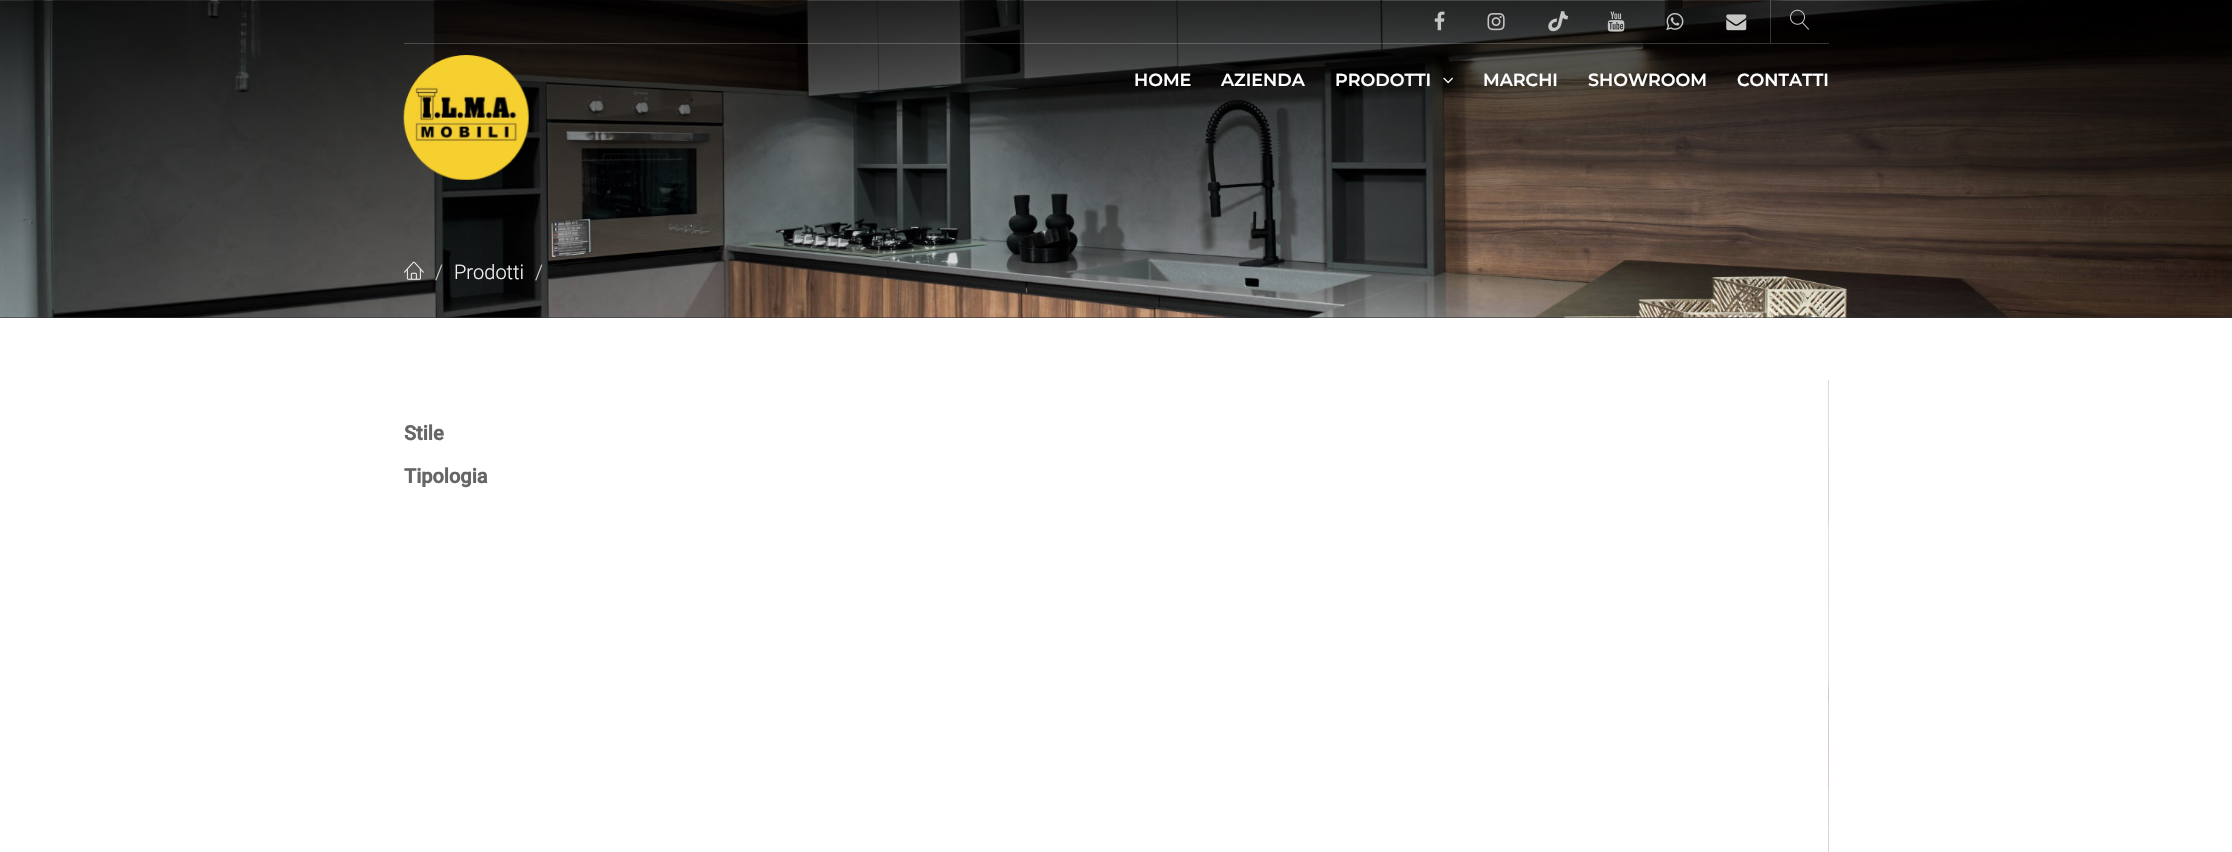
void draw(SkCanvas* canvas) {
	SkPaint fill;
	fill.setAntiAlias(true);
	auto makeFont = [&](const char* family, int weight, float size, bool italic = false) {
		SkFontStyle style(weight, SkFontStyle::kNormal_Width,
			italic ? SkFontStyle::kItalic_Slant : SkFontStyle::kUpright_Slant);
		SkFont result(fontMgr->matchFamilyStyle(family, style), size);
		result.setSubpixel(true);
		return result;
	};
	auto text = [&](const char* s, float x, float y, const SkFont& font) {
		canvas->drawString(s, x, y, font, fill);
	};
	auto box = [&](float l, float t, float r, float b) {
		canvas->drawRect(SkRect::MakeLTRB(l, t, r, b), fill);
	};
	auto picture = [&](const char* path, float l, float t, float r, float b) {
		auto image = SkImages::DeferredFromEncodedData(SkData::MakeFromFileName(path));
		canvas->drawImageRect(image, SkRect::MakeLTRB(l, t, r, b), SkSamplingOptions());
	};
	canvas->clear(0xFFFFFFFF);
	fill.setColor(0xFF3A3D45);
	box(0, 317, 2232, 318);
	picture("image9.png", 0, 0, 2232, 318);
	fill.setColor(0x33FFFFFF);
	box(404, 43, 1829, 44);
	picture("image0.png", 1434, 11, 1445, 31);
	picture("image1.png", 1487, 13, 1505, 31);
	picture("image2.png", 1548, 11, 1569, 32);
	picture("image3.png", 1607, 11, 1625, 32);
	picture("image4.png", 1666, 13, 1684, 31);
	picture("image5.png", 1726, 14, 1747, 31);
	box(1770, 0, 1771, 43);
	picture("image6.png", 1790, 9, 1809, 30);
	picture("image7.png", 403, 55, 529, 180);
	picture("image8.png", 1443, 77, 1453, 84);
	picture("image10.png", 404, 261, 424, 280);
	picture("image11.png", 1828, 380, 1829, 852);
	auto font1 = makeFont("Montserrat", 600, 17.5f);
	fill.setColor(0xFFFFFFFF);
	text("HOME", 1134, 86, font1);
	text("AZIENDA", 1221, 86, font1);
	text("PRODOTTI", 1335, 86, font1);
	text("MARCHI", 1483, 86, font1);
	text("SHOWROOM", 1588, 86, font1);
	text("CONTATTI", 1737, 86, font1);
	auto font2 = makeFont("Roboto", 300, 20);
	fill.setColor(0xFFCCCCCC);
	text("/", 435, 279, font2);
	fill.setColor(0xFFF4F4F4);
	text("Prodotti", 454, 279, font2);
	fill.setColor(0xFFCCCCCC);
	text("/", 535, 279, font2);
	auto font3 = makeFont("Roboto", 700, 20);
	fill.setColor(0xFF666666);
	text("Stile", 404, 440, font3);
	text("Tipologia", 404, 483, font3);
}
